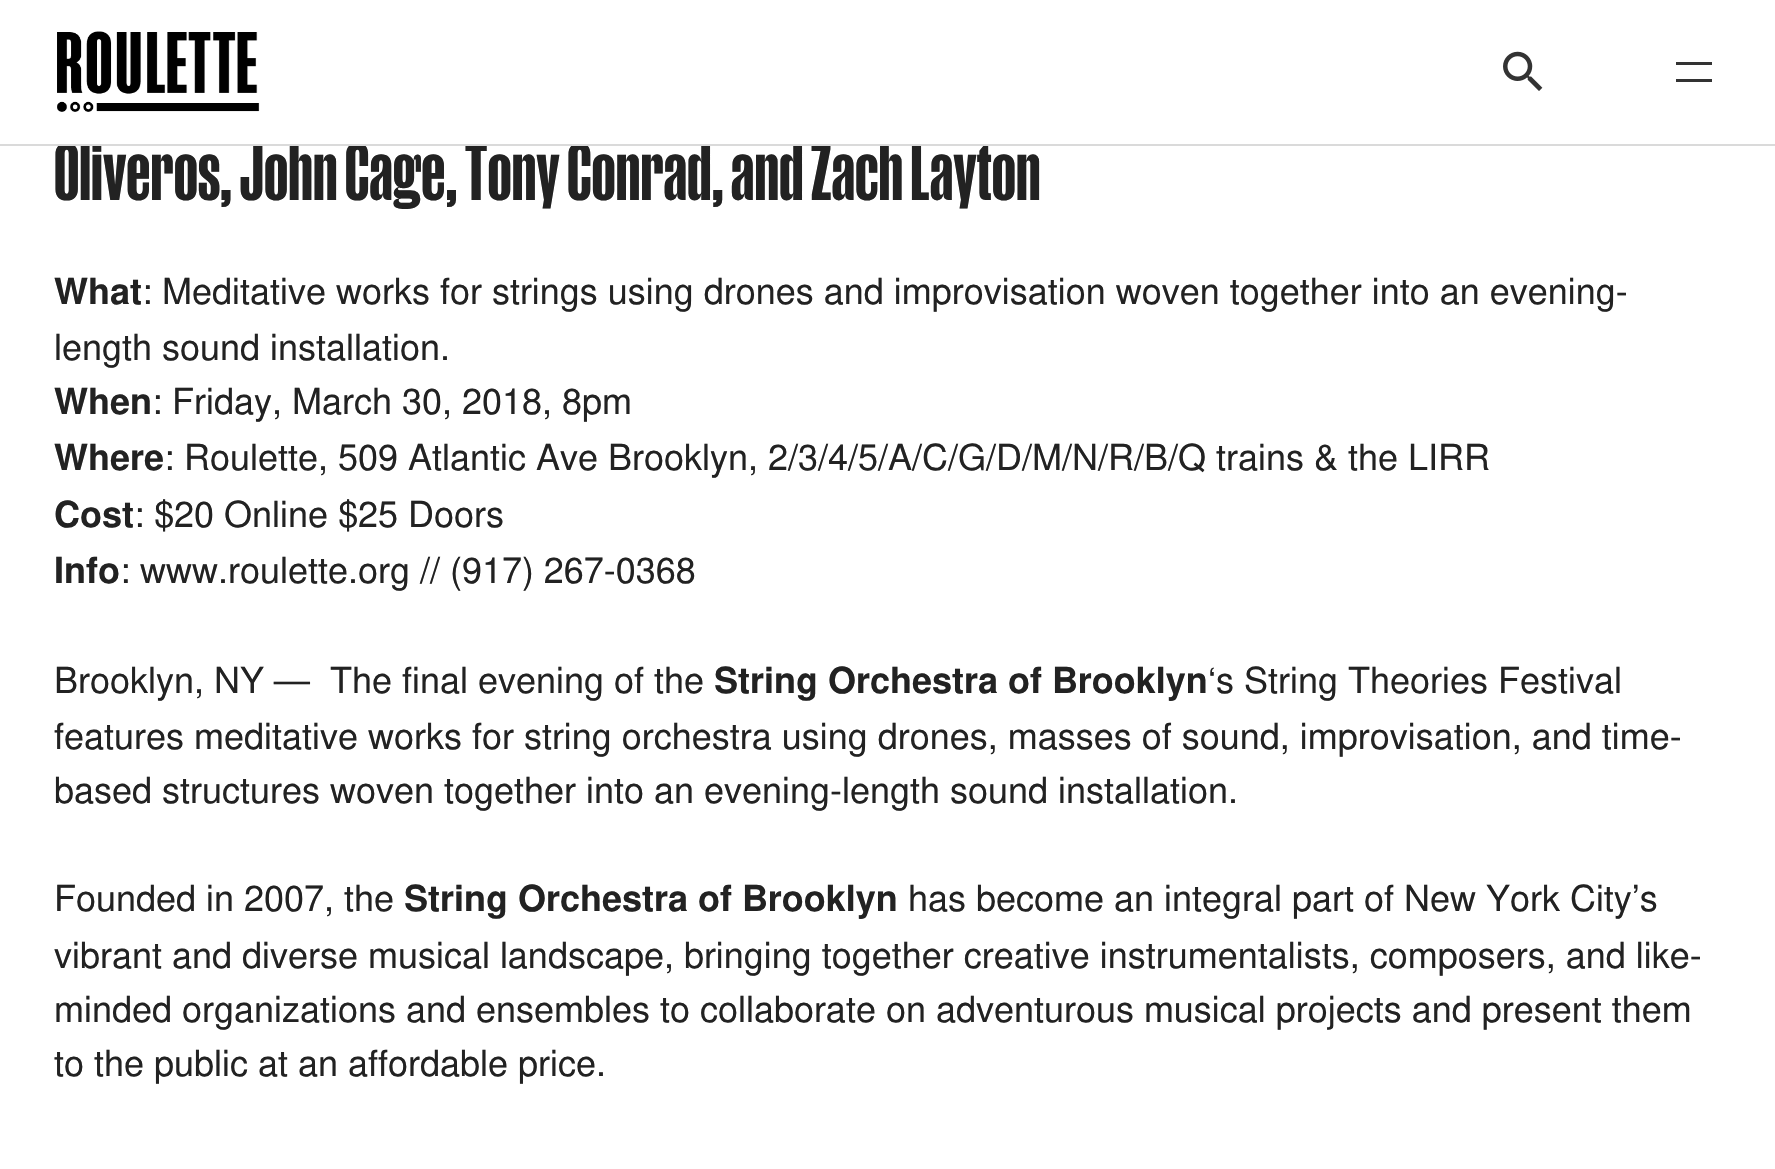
void draw(SkCanvas* canvas) {
	SkPaint fill;
	fill.setAntiAlias(true);
	auto makeFont = [&](const char* family, int weight, float size, bool italic = false) {
		SkFontStyle style(weight, SkFontStyle::kNormal_Width,
			italic ? SkFontStyle::kItalic_Slant : SkFontStyle::kUpright_Slant);
		SkFont result(fontMgr->matchFamilyStyle(family, style), size);
		result.setSubpixel(true);
		return result;
	};
	auto text = [&](const char* s, float x, float y, const SkFont& font) {
		canvas->drawString(s, x, y, font, fill);
	};
	auto box = [&](float l, float t, float r, float b) {
		canvas->drawRect(SkRect::MakeLTRB(l, t, r, b), fill);
	};
	auto picture = [&](const char* path, float l, float t, float r, float b) {
		auto image = SkImages::DeferredFromEncodedData(SkData::MakeFromFileName(path));
		canvas->drawImageRect(image, SkRect::MakeLTRB(l, t, r, b), SkSamplingOptions());
	};
	canvas->clear(0xFFFFFFFF);
	picture("image0.png", 57, 31, 260, 112);
	picture("image1.png", 1503, 51, 1543, 91);
	fill.setColor(0xFF333333);
	box(1676, 62, 1712, 65);
	box(1676, 79, 1712, 82);
	auto font1 = makeFont("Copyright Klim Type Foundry", 700, 76.5f);
	fill.setColor(0xFF222222);
	text("Oliveros, John Cage, Tony Conrad, and Zach Layton", 54, 200, font1);
	fill.setColor(0xFFDADADA);
	box(0, 144, 1775, 146);
	fill.setColor(0xFFFFFFFF);
	box(61, 142, 989, 144);
	auto font2 = makeFont("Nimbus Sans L", 700, 36);
	fill.setColor(0xFF222222);
	text("What", 54, 304, font2);
	auto font3 = makeFont("Nimbus Sans L", 400, 36);
	text(": Meditative works for strings using drones and improvisation woven together into an evening-", 142, 304, font3);
	text("length sound installation.", 54, 360, font3);
	text("When", 54, 414, font2);
	text(": Friday, March 30, 2018, 8pm", 152, 414, font3);
	text("Where", 54, 470, font2);
	text(": Roulette, 509 Atlantic Ave Brooklyn, 2/3/4/5/A/C/G/D/M/N/R/B/Q trains & the LIRR", 164, 470, font3);
	text("Cost", 54, 527, font2);
	text(": $20 Online $25 Doors", 134, 527, font3);
	text("Info", 54, 583, font2);
	text(": www.roulette.org // (917) 267-0368", 120, 583, font3);
	text("Brooklyn, NY —  The final evening of the", 54, 693, font3);
	text("String Orchestra of Brooklyn", 714, 693, font2);
	text("‘s String Theories Festival", 1208, 693, font3);
	text("features meditative works for string orchestra using drones, masses of sound, improvisation, and time-", 54, 749, font3);
	text("based structures woven together into an evening-length sound installation.", 54, 803, font3);
	text("Founded in 2007, the", 54, 911, font3);
	text("String Orchestra of Brooklyn", 404, 911, font2);
	text("has become an integral part of New York City’s", 908, 911, font3);
	text("vibrant and diverse musical landscape, bringing together creative instrumentalists, composers, and like-", 54, 968, font3);
	text("minded organizations and ensembles to collaborate on adventurous musical projects and present them", 54, 1022, font3);
	text("to the public at an affordable price.", 54, 1076, font3);
}
